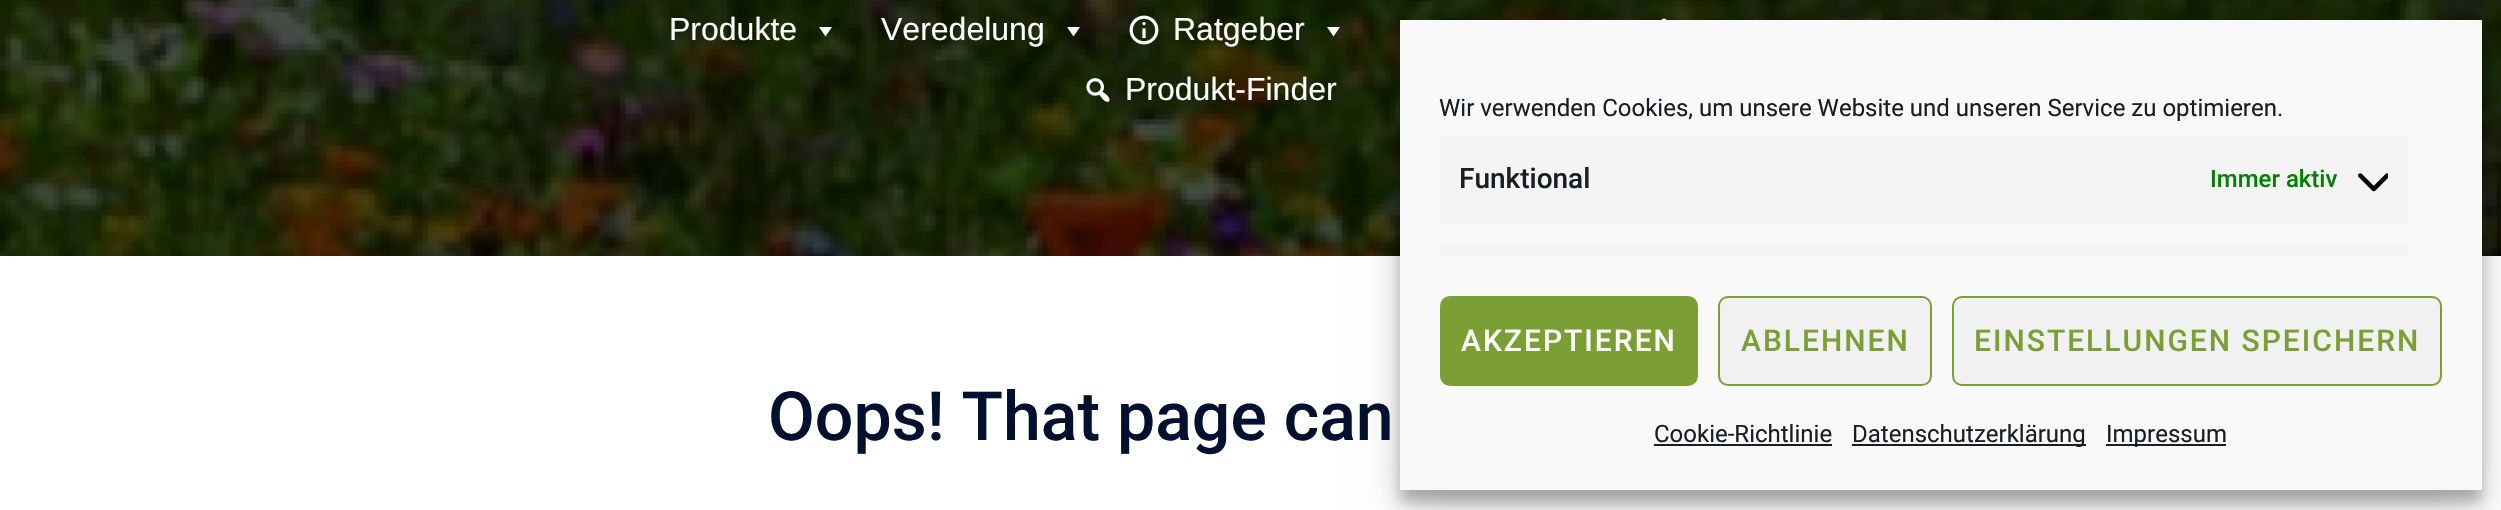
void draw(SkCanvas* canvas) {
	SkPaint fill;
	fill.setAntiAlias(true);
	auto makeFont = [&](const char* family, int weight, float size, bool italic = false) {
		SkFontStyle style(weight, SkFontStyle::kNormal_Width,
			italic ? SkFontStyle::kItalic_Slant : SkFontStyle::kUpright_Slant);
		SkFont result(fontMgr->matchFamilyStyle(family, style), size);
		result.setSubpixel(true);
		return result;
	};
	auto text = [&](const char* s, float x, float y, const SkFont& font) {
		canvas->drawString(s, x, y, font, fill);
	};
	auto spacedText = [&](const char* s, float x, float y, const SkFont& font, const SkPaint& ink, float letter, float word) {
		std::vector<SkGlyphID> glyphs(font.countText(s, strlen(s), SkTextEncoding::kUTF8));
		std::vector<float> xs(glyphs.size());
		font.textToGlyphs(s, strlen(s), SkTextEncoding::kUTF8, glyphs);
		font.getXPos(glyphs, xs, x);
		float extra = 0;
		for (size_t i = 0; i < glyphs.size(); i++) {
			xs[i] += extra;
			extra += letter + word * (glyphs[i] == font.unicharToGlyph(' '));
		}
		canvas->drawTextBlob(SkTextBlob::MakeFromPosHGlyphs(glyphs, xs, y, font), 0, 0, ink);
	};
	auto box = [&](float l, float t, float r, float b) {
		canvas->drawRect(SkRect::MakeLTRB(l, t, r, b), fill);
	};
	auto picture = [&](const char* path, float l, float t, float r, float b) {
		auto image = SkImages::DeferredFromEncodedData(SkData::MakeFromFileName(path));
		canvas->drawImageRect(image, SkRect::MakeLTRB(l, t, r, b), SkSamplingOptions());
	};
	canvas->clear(0xFFFFFFFF);
	picture("image0.png", 0, 0, 2501, 256);
	fill.setColor(0xFFFFFFFF);
	canvas->drawPath(SkPathBuilder().moveTo(832, 27).lineTo(825.5f, 36.5f).lineTo(819, 27).close().detach(), fill);
	canvas->drawPath(SkPathBuilder().moveTo(1080, 27).lineTo(1073.5f, 36.5f).lineTo(1067, 27).close().detach(), fill);
	picture("image1.png", 1129, 15, 1159, 45);
	canvas->drawPath(SkPathBuilder().moveTo(1340, 27).lineTo(1333.5f, 36.5f).lineTo(1327, 27).close().detach(), fill);
	picture("image2.png", 1661, 18, 1667, 20);
	picture("image3.png", 1086, 78, 1110, 102);
	fill.setColor(0x3B000000);
	fill.setMaskFilter(SkMaskFilter::MakeBlur(kNormal_SkBlurStyle, 6));
	canvas->drawRect(SkRect::MakeLTRB(1400, 32, 2482, 502), fill);
	fill.setMaskFilter(nullptr);
	fill.setColor(0x30000000);
	fill.setMaskFilter(SkMaskFilter::MakeBlur(kNormal_SkBlurStyle, 20));
	canvas->drawRect(SkRect::MakeLTRB(1400, 40, 2482, 510), fill);
	fill.setMaskFilter(nullptr);
	fill.setColor(0xFFF9F9F9);
	box(1400, 20, 2482, 490);
	fill.setColor(0xFFF4F4F4);
	box(1440, 136, 2408, 224);
	picture("image4.png", 2358, 173, 2388, 192);
	box(1440, 244, 2408, 256);
	fill.setColor(0xFF7B9F35);
	canvas->drawRoundRect(SkRect::MakeLTRB(1441, 297, 1697, 385), 9, 9, fill);
	fill.setStyle(SkPaint::kStroke_Style);
	fill.setStrokeWidth(2);
	canvas->drawRoundRect(SkRect::MakeLTRB(1441, 297, 1697, 385), 9, 9, fill);
	fill.setStyle(SkPaint::kFill_Style);
	fill.setColor(0xFFF1F1F1);
	canvas->drawRoundRect(SkRect::MakeLTRB(1719, 297, 1931, 385), 9, 9, fill);
	fill.setStyle(SkPaint::kStroke_Style);
	fill.setColor(0xFF7B9F35);
	canvas->drawRoundRect(SkRect::MakeLTRB(1719, 297, 1931, 385), 9, 9, fill);
	fill.setStyle(SkPaint::kFill_Style);
	fill.setColor(0xFFF1F1F1);
	canvas->drawRoundRect(SkRect::MakeLTRB(1953, 297, 2441, 385), 9, 9, fill);
	fill.setStyle(SkPaint::kStroke_Style);
	fill.setColor(0xFF7B9F35);
	canvas->drawRoundRect(SkRect::MakeLTRB(1953, 297, 2441, 385), 9, 9, fill);
	fill.setStyle(SkPaint::kFill_Style);
	fill.setColor(0xFF191E23);
	box(1654, 444, 1832, 446);
	box(1852, 444, 2086, 446);
	box(2106, 444, 2226, 446);
	auto font1 = makeFont("Liberation Sans", 400, 32);
	fill.setColor(0xFFFFFFFF);
	text("Produkte", 669, 40, font1);
	text("Veredelung", 881, 40, font1);
	text("Ratgeber", 1173, 40, font1);
	text("Produkt-Finder", 1125, 100, font1);
	auto font2 = makeFont("Roboto", 500, 68);
	fill.setColor(0xFF00102E);
	text("Oops! That page can", 768, 440, font2);
	auto font3 = makeFont("Roboto", 400, 24);
	fill.setColor(0xFF191E23);
	text("Wir verwenden Cookies, um unsere Website und unseren Service zu optimieren.", 1439, 116, font3);
	auto font4 = makeFont("Roboto", 500, 28);
	text("Funktional", 1459, 188, font4);
	auto font5 = makeFont("Roboto", 500, 24);
	fill.setColor(0xFF008000);
	text("Immer aktiv", 2210, 187, font5);
	auto font6 = makeFont("Roboto", 500, 30);
	fill.setColor(0xFFFFFFFF);
	spacedText("AKZEPTIEREN", 1461, 351, font6, fill, 2, 0);
	fill.setColor(0xFF7B9F35);
	spacedText("ABLEHNEN", 1741, 351, font6, fill, 2, 0);
	spacedText("EINSTELLUNGEN SPEICHERN", 1974, 351, font6, fill, 2, 0);
	fill.setColor(0xFF191E23);
	text("Cookie-Richtlinie", 1654, 442, font3);
	text("Datenschutzerklärung", 1852, 442, font3);
	text("Impressum", 2106, 442, font3);
}
